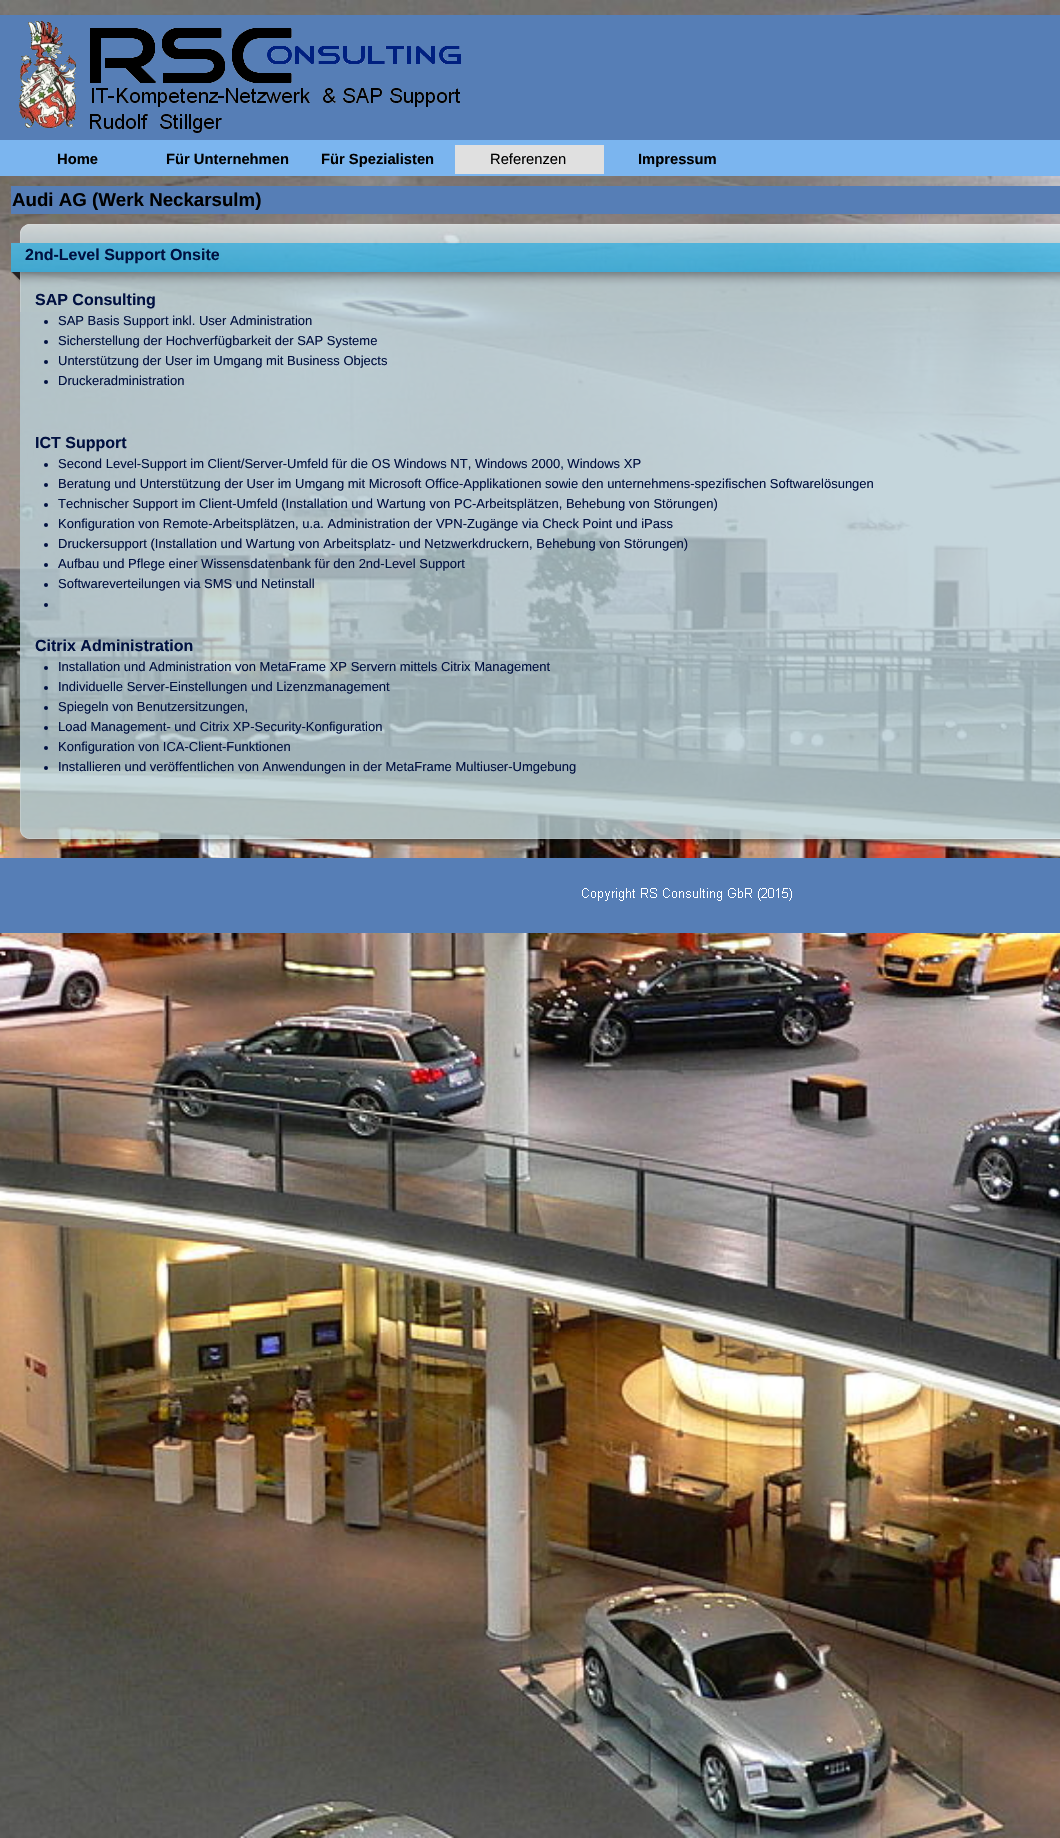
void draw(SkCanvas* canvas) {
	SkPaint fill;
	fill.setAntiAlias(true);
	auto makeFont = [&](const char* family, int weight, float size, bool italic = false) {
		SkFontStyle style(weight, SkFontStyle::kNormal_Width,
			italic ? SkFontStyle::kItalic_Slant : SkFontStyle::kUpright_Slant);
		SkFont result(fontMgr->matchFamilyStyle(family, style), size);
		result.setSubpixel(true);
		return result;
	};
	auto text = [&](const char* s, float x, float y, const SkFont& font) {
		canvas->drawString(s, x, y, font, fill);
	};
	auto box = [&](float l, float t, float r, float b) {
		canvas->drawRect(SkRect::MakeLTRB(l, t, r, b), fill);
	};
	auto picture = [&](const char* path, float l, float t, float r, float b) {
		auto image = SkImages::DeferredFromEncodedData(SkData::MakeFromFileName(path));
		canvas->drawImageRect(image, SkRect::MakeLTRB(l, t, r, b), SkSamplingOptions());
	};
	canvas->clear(0xFFFFFFFF);
	picture("image0.png", 0, 0, 1060, 1838);
	fill.setColor(0xFF567EB6);
	box(0, 15, 1060, 140);
	picture("image1.png", 19, 21, 461, 133);
	fill.setColor(0xFF7BB5EF);
	box(0, 140, 1060, 176);
	fill.setColor(0xFFE0E0E0);
	box(455, 145, 604, 174);
	fill.setColor(0xFF567EB6);
	box(11, 186, 1060, 214);
	picture("image2.png", 11, 224, 84, 312);
	picture("image3.png", 84, 224, 1060, 312);
	fill.setColor(0xCFB8CDD4);
	box(20, 312, 84, 760);
	box(84, 312, 1060, 760);
	picture("image4.png", 11, 760, 84, 846);
	picture("image5.png", 84, 760, 1060, 846);
	fill.setColor(0xFF001040);
	canvas->drawCircle(46, 322, 2, fill);
	canvas->drawCircle(46, 342, 2, fill);
	canvas->drawCircle(46, 362, 2, fill);
	canvas->drawCircle(46, 382, 2, fill);
	canvas->drawCircle(46, 465, 2, fill);
	canvas->drawCircle(46, 485, 2, fill);
	canvas->drawCircle(46, 505, 2, fill);
	canvas->drawCircle(46, 525, 2, fill);
	canvas->drawCircle(46, 545, 2, fill);
	canvas->drawCircle(46, 565, 2, fill);
	canvas->drawCircle(46, 585, 2, fill);
	canvas->drawCircle(46, 605, 2, fill);
	canvas->drawCircle(46, 668, 2, fill);
	canvas->drawCircle(46, 688, 2, fill);
	canvas->drawCircle(46, 708, 2, fill);
	canvas->drawCircle(46, 728, 2, fill);
	canvas->drawCircle(46, 748, 2, fill);
	canvas->drawCircle(46, 768, 2, fill);
	fill.setColor(0xFF567EB6);
	box(0, 858, 1060, 933);
	picture("image6.png", 582, 888, 792, 901);
	auto font1 = makeFont("Liberation Sans", 700, 14.75f);
	fill.setColor(0xFF000000);
	text("Home", 57, 164, font1);
	text("Für Unternehmen", 166, 164, font1);
	text("Für Spezialisten", 321, 164, font1);
	auto font2 = makeFont("Liberation Sans", 400, 14.75f);
	text("Referenzen", 490, 164, font2);
	text("Impressum", 638, 164, font1);
	auto font3 = makeFont("Liberation Sans", 700, 18.7f);
	text("Audi AG (Werk Neckarsulm)", 12, 206, font3);
	auto font4 = makeFont("Liberation Sans", 700, 16);
	fill.setColor(0xFF001040);
	text("2nd-Level Support Onsite", 25, 260, font4);
	text("SAP Consulting", 35, 305, font4);
	auto font5 = makeFont("Liberation Sans", 400, 13);
	text("SAP Basis Support inkl. User Administration", 58, 325, font5);
	text("Sicherstellung der Hochverfügbarkeit der SAP Systeme", 58, 345, font5);
	text("Unterstützung der User im Umgang mit Business Objects", 58, 365, font5);
	text("Druckeradministration", 58, 385, font5);
	text("ICT Support", 35, 448, font4);
	text("Second Level-Support im Client/Server-Umfeld für die OS Windows NT, Windows 2000, Windows XP", 58, 468, font5);
	text("Beratung und Unterstützung der User im Umgang mit Microsoft Office-Applikationen sowie den unternehmens-spezifischen Softwarelösungen", 58, 488, font5);
	text("Technischer Support im Client-Umfeld (Installation und Wartung von PC-Arbeitsplätzen, Behebung von Störungen)", 58, 508, font5);
	text("Konfiguration von Remote-Arbeitsplätzen, u.a. Administration der VPN-Zugänge via Check Point und iPass", 58, 528, font5);
	text("Druckersupport (Installation und Wartung von Arbeitsplatz- und Netzwerkdruckern, Behebung von Störungen)", 58, 548, font5);
	text("Aufbau und Pflege einer Wissensdatenbank für den 2nd-Level Support", 58, 568, font5);
	text("Softwareverteilungen via SMS und Netinstall", 58, 588, font5);
	text("Citrix Administration", 35, 651, font4);
	text("Installation und Administration von MetaFrame XP Servern mittels Citrix Management", 58, 671, font5);
	text("Individuelle Server-Einstellungen und Lizenzmanagement", 58, 691, font5);
	text("Spiegeln von Benutzersitzungen,", 58, 711, font5);
	text("Load Management- und Citrix XP-Security-Konfiguration", 58, 731, font5);
	text("Konfiguration von ICA-Client-Funktionen", 58, 751, font5);
	text("Installieren und veröffentlichen von Anwendungen in der MetaFrame Multiuser-Umgebung", 58, 771, font5);
}
